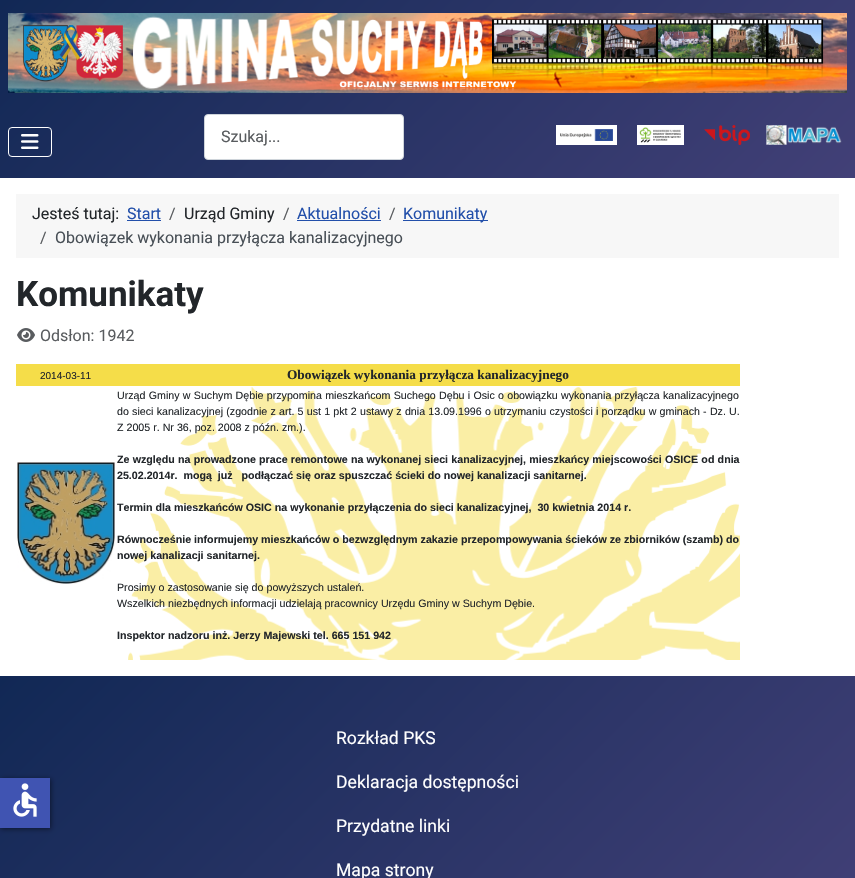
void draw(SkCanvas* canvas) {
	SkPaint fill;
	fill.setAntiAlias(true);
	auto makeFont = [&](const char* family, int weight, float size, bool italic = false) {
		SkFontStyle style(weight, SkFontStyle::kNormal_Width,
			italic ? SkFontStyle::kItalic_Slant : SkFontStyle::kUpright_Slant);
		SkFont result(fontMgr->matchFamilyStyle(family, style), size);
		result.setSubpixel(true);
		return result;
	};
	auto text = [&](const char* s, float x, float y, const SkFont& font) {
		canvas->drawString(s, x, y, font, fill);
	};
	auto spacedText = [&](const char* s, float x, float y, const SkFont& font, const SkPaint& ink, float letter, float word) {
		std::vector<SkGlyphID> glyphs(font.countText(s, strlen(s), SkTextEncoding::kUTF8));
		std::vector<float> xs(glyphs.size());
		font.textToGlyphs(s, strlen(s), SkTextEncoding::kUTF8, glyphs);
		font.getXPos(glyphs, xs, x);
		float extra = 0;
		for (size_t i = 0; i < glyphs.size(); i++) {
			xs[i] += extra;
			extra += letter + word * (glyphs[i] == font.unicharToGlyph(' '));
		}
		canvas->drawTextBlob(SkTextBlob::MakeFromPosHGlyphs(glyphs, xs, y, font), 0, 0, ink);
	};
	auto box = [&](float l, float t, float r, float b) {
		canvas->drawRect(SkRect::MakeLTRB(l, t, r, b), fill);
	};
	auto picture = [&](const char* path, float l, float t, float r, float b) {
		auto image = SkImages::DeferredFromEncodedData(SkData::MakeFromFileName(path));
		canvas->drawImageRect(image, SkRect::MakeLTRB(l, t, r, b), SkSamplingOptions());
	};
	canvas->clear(0xFFFFFFFF);
	{
		const SkColor colors[] = {0xFF112855, 0xFF424077};
		const float stops[] = {0, 1};
		const SkPoint ends[] = {{169, -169}, {686, 347}};
		fill.setShader(SkGradientShader::MakeLinear(ends, colors, stops, 2, SkTileMode::kClamp));
		fill.setAlpha(255);
	}
	box(0, 0, 855, 178);
	picture("image0.png", 8, 13, 847, 93);
	fill.setStyle(SkPaint::kStroke_Style);
	fill.setStrokeWidth(1);
	fill.setShader(nullptr);
	fill.setColor(0xFFFFFFFF);
	canvas->drawRoundRect(SkRect::MakeLTRB(8.5f, 127.5f, 51.5f, 156.5f), 3.5f, 3.5f, fill);
	picture("image1.png", 21, 134, 39, 149);
	fill.setStyle(SkPaint::kFill_Style);
	canvas->drawRoundRect(SkRect::MakeLTRB(204.5f, 114.5f, 403.5f, 159.5f), 3.5f, 3.5f, fill);
	fill.setStyle(SkPaint::kStroke_Style);
	fill.setColor(0xFFCED4DA);
	canvas->drawRoundRect(SkRect::MakeLTRB(204.5f, 114.5f, 403.5f, 159.5f), 3.5f, 3.5f, fill);
	picture("image2.png", 556, 125, 617, 145);
	picture("image3.png", 637, 125, 684, 145);
	picture("image4.png", 704, 125, 750, 145);
	picture("image5.png", 766, 125, 842, 145);
	fill.setStyle(SkPaint::kFill_Style);
	fill.setColor(0xFFF7F7F7);
	box(16, 194, 839, 258);
	fill.setColor(0xFF224FAA);
	box(127, 220, 161, 221);
	box(297, 220, 381, 221);
	box(403, 220, 488, 221);
	picture("image6.png", 17, 328, 35, 342);
	fill.setColor(0xFFF5DD49);
	box(16, 364, 740, 386);
	picture("image7.png", 17, 462, 115, 584);
	picture("image8.png", 128, 387, 740, 660);
	{
		const SkColor colors[] = {0xFF112855, 0xFF424077};
		const float stops[] = {0, 1};
		const SkPoint ends[] = {{150, 526}, {705, 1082}};
		fill.setShader(SkGradientShader::MakeLinear(ends, colors, stops, 2, SkTileMode::kClamp));
		fill.setAlpha(255);
	}
	box(0, 676, 855, 878);
	fill.setShader(nullptr);
	fill.setColor(0x80000000);
	fill.setMaskFilter(SkMaskFilter::MakeBlur(kNormal_SkBlurStyle, 2.5f));
	canvas->drawRect(SkRect::MakeLTRB(1, 779, 51, 829), fill);
	fill.setMaskFilter(nullptr);
	fill.setColor(0xFF4054B2);
	box(0, 778, 50, 828);
	picture("image9.png", 13, 783, 37, 817);
	auto font1 = makeFont("Roboto", 400, 16);
	fill.setColor(0xFF595C5F);
	text("Szukaj...", 221, 142, font1);
	fill.setColor(0xFF22262A);
	text("Jesteś tutaj:", 32, 219, font1);
	fill.setColor(0xFF224FAA);
	text("Start", 127, 219, font1);
	fill.setColor(0xFF595C5F);
	text("/", 169, 219, font1);
	fill.setColor(0xFF22262A);
	text("Urząd Gminy", 184, 219, font1);
	fill.setColor(0xFF595C5F);
	text("/", 283, 219, font1);
	fill.setColor(0xFF224FAA);
	text("Aktualności", 297, 219, font1);
	fill.setColor(0xFF595C5F);
	text("/", 389, 219, font1);
	fill.setColor(0xFF224FAA);
	text("Komunikaty", 403, 219, font1);
	fill.setColor(0xFF595C5F);
	text("/", 40, 243, font1);
	fill.setColor(0xFF484F56);
	text("Obowiązek wykonania przyłącza kanalizacyjnego", 55, 243, font1);
	auto font2 = makeFont("Roboto", 700, 35);
	fill.setColor(0xFF22262A);
	text("Komunikaty", 16, 306, font2);
	fill.setColor(0xFF595C5F);
	text("Odsłon: 1942", 40, 341, font1);
	auto font3 = makeFont("Liberation Sans", 400, 10);
	fill.setColor(0xFF22262A);
	text("2014-03-11", 40, 379, font3);
	auto font4 = makeFont("Liberation Serif", 700, 13.3f);
	text("Obowiązek wykonania przyłącza kanalizacyjnego", 287, 379, font4);
	auto font5 = makeFont("Liberation Sans", 400, 10.67f);
	spacedText("Urząd Gminy w Suchym Dębie przypomina mieszkańcom Suchego Dębu i Osic o obowiązku wykonania przyłącza kanalizacyjnego", 117, 399, font5, fill, 0, 0.3f);
	spacedText("do sieci kanalizacyjnej (zgodnie z art. 5 ust 1 pkt 2 ustawy z dnia 13.09.1996 o utrzymaniu czystości i porządku w gminach - Dz. U.", 117, 415, font5, fill, 0, 0.25f);
	text("Z 2005 r. Nr 36, poz. 2008 z późn. zm.).", 117, 431, font5);
	auto font6 = makeFont("Liberation Sans", 700, 10.67f);
	spacedText("Ze względu na prowadzone prace remontowe na wykonanej sieci kanalizacyjnej, mieszkańcy miejscowości OSICE od dnia", 117, 463, font6, fill, 0, 0.25f);
	text("25.02.2014r.  mogą  już   podłączać się oraz spuszczać ścieki do nowej kanalizacji sanitarnej.", 117, 479, font6);
	text("Termin dla mieszkańców OSIC na wykonanie przyłączenia do sieci kanalizacyjnej,  30 kwietnia 2014 r.", 117, 511, font6);
	text("Równocześnie informujemy mieszkańców o bezwzględnym zakazie przepompowywania ścieków ze zbiorników (szamb) do", 117, 543, font6);
	text("nowej kanalizacji sanitarnej.", 117, 559, font6);
	text("Prosimy o zastosowanie się do powyższych ustaleń.", 117, 591, font5);
	text("Wszelkich niezbędnych informacji udzielają pracownicy Urzędu Gminy w Suchym Dębie.", 117, 607, font5);
	text("Inspektor nadzoru inż. Jerzy Majewski tel. 665 151 942", 117, 639, font6);
	auto font7 = makeFont("Roboto", 400, 17.6f);
	fill.setColor(0xFFFFFFFF);
	text("Rozkład PKS", 336, 744, font7);
	text("Deklaracja dostępności", 336, 788, font7);
	text("Przydatne linki", 336, 832, font7);
	text("Mapa strony", 336, 876, font7);
}
